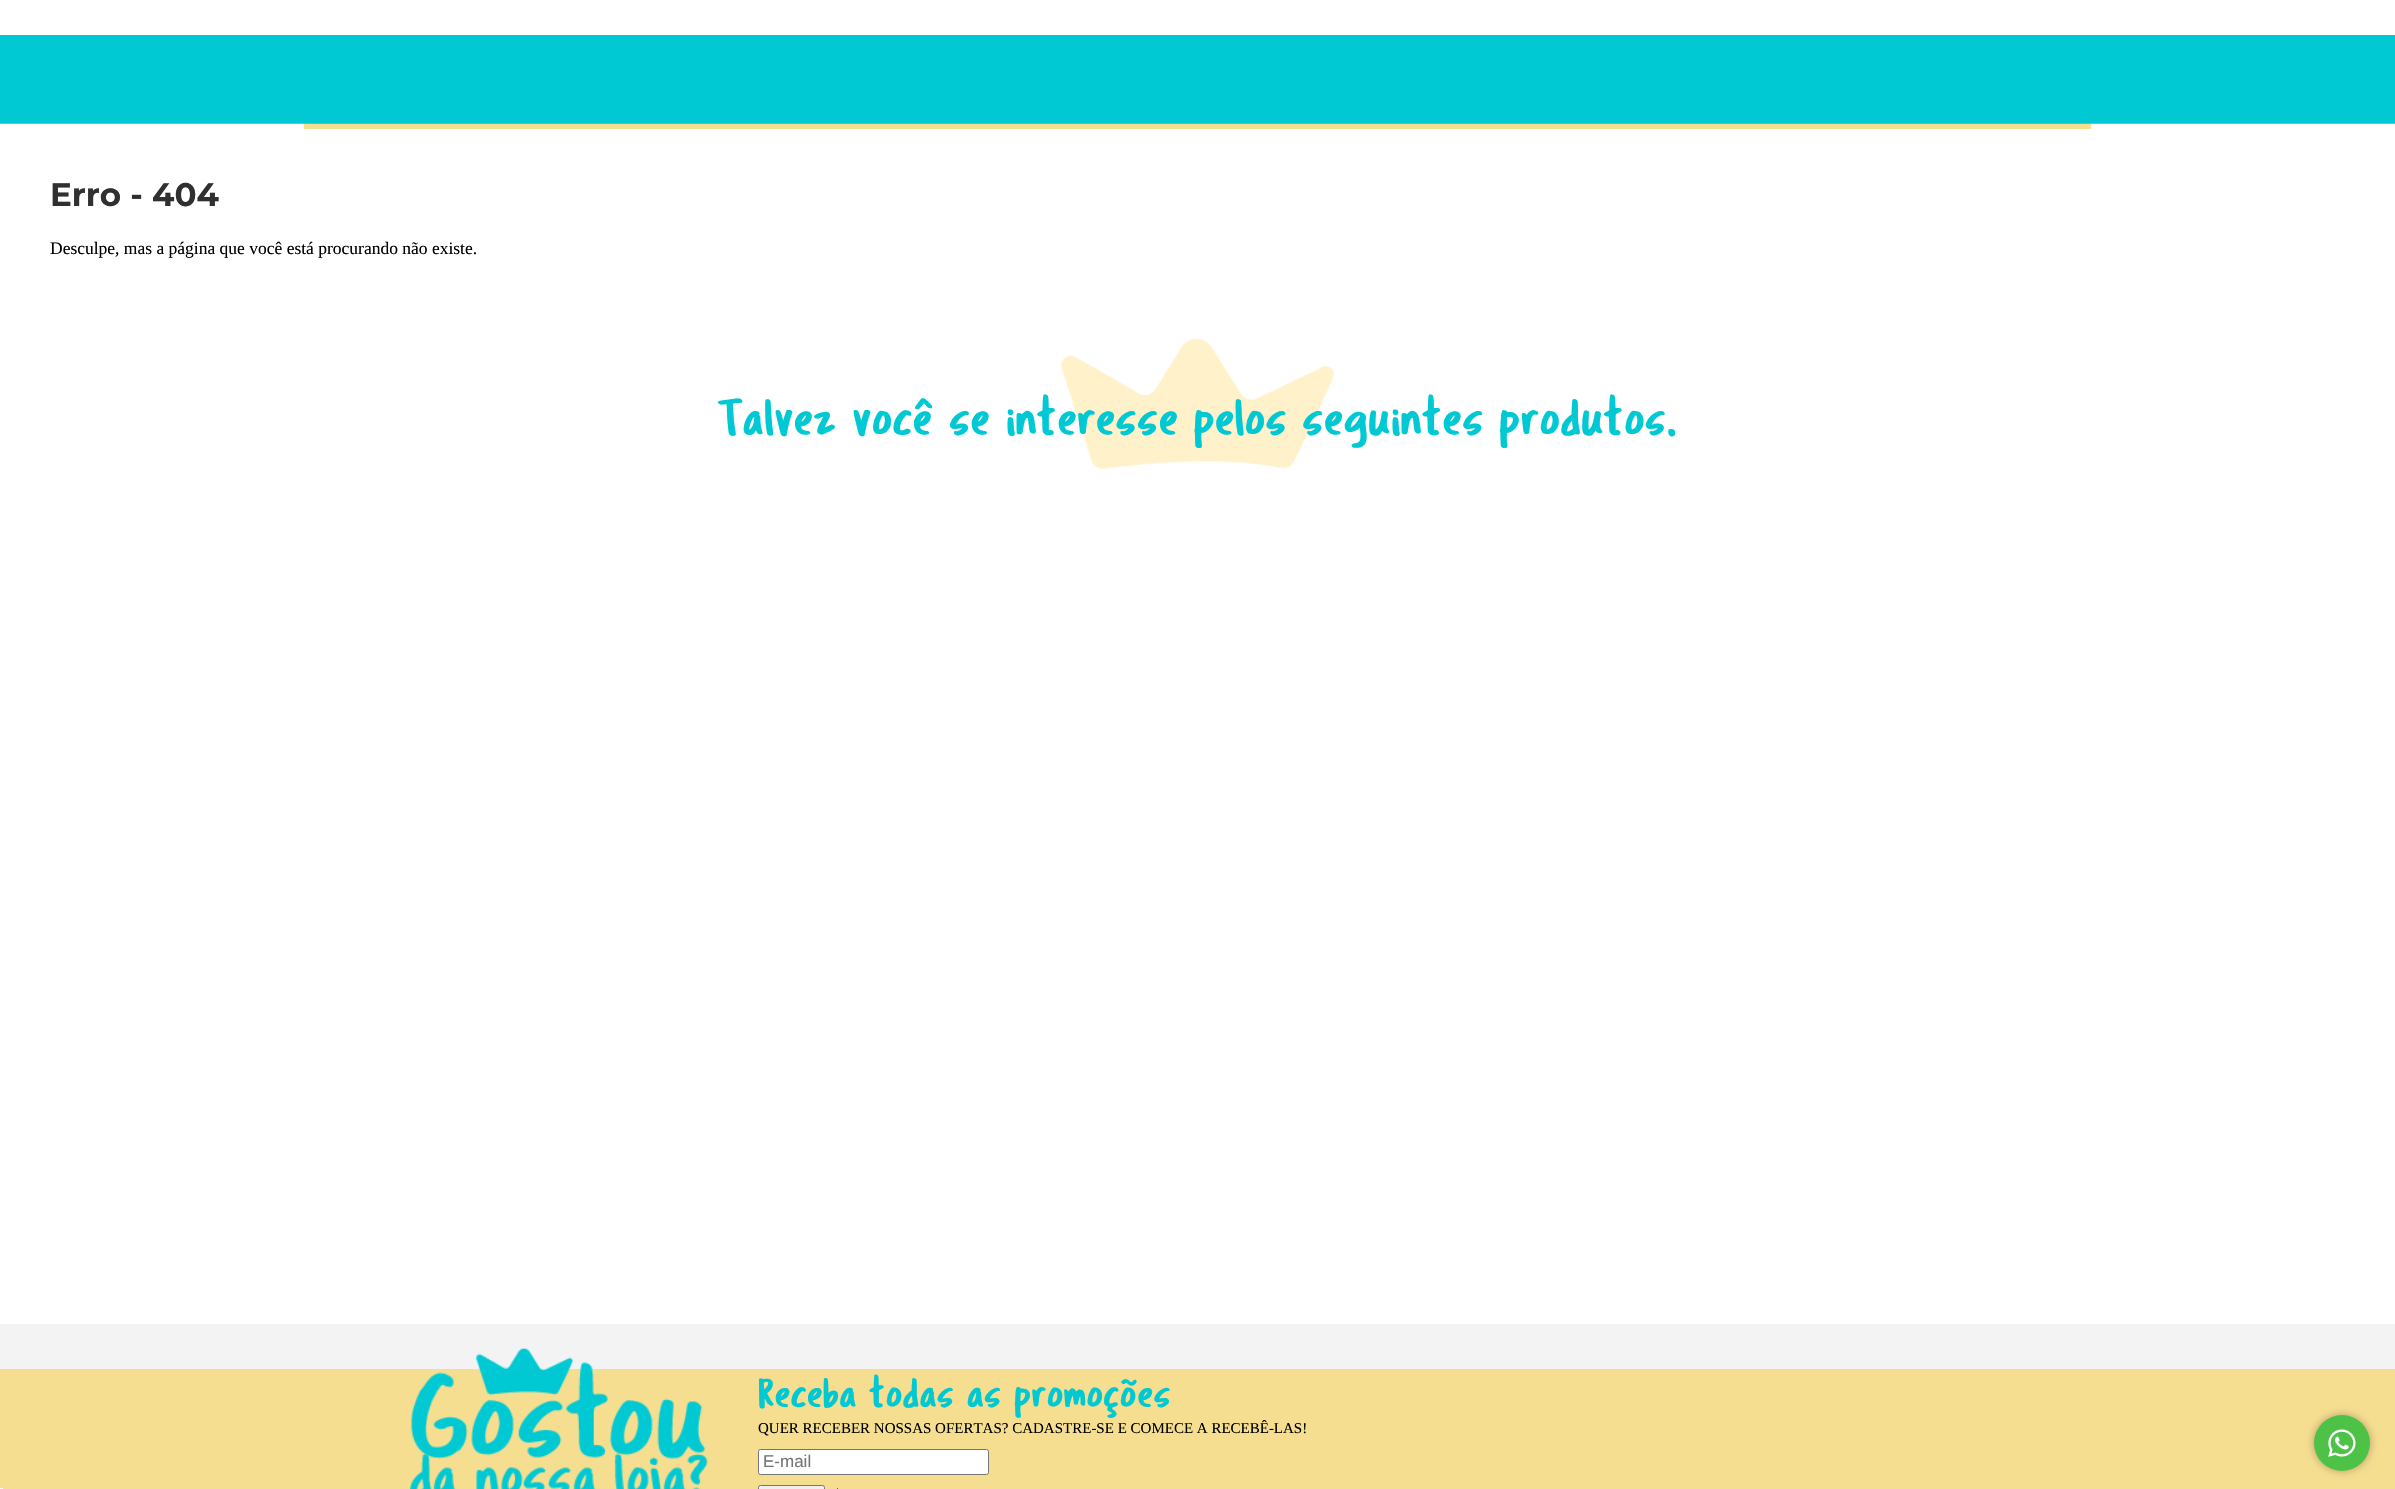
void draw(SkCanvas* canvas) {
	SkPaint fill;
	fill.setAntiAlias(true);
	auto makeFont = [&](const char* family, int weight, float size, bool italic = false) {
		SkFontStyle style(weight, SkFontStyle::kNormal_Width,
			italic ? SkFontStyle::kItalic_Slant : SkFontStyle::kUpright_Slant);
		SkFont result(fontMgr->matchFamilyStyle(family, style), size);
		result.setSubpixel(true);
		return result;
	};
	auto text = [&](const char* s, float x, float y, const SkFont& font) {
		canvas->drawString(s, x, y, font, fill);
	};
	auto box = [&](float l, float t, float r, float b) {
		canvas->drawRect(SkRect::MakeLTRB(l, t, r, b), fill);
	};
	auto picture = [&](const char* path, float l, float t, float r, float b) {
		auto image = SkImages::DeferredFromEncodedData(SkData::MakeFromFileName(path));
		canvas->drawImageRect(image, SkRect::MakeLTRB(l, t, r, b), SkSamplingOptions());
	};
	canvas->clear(0xFFFFFFFF);
	picture("image0.png", 0, 35, 2395, 129);
	picture("image1.png", 1061, 338, 1334, 469);
	fill.setColor(0xFFF3F3F3);
	box(0, 1324, 2395, 1369);
	fill.setColor(0xFFF6DE91);
	box(0, 1369, 2395, 1489);
	picture("image2.png", 410, 1347, 708, 1489);
	fill.setColor(0xFFFFFFFF);
	canvas->drawRoundRect(SkRect::MakeLTRB(758.5f, 1449.5f, 988.5f, 1474.5f), 2, 2, fill);
	fill.setStyle(SkPaint::kStroke_Style);
	fill.setStrokeWidth(1);
	fill.setColor(0xFF767676);
	canvas->drawRoundRect(SkRect::MakeLTRB(758.5f, 1449.5f, 988.5f, 1474.5f), 2, 2, fill);
	fill.setStyle(SkPaint::kFill_Style);
	fill.setColor(0xFFEFEFEF);
	canvas->drawRoundRect(SkRect::MakeLTRB(758.5f, 1485.5f, 824.5f, 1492.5f), 2, 2, fill);
	fill.setStyle(SkPaint::kStroke_Style);
	fill.setColor(0xFF767676);
	canvas->drawRoundRect(SkRect::MakeLTRB(758.5f, 1485.5f, 824.5f, 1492.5f), 2, 2, fill);
	fill.setStyle(SkPaint::kFill_Style);
	fill.setColor(0xFF6F6441);
	box(837, 1488, 838, 1489);
	fill.setColor(0x4D000000);
	fill.setMaskFilter(SkMaskFilter::MakeBlur(kNormal_SkBlurStyle, 4));
	canvas->drawRoundRect(SkRect::MakeLTRB(2314, 1415, 2370, 1471), 28, 28, fill);
	fill.setMaskFilter(nullptr);
	fill.setColor(0xFF4DC247);
	canvas->drawCircle(2342, 1443, 28, fill);
	picture("image3.png", 2328, 1429, 2356, 1457);
	fill.setColor(0xFFF5F5F5);
	box(0, 1488, 3, 1489);
	auto font1 = makeFont("Montserrat", 700, 32.5f);
	fill.setColor(0xFF303030);
	text("Erro - 404", 50, 206, font1);
	auto font2 = makeFont("Liberation Serif", 400, 17.5f);
	fill.setColor(0xFF000000);
	text("Desculpe, mas a página que você está procurando não existe.", 50, 254, font2);
	auto font3 = makeFont("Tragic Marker", 400, 52.5f);
	fill.setColor(0xFF00C9D3);
	text("Talvez você se interesse pelos seguintes produtos.", 720, 436, font3);
	auto font4 = makeFont("Tragic Marker", 400, 42.5f);
	text("Receba todas as promoções", 758, 1408, font4);
	auto font5 = makeFont("Liberation Serif", 400, 15);
	fill.setColor(0xFF000000);
	text("QUER RECEBER NOSSAS OFERTAS? CADASTRE-SE E COMECE A RECEBÊ-LAS!", 758, 1433, font5);
	auto font6 = makeFont("Liberation Sans", 400, 17);
	fill.setColor(0xFF757575);
	text("E-mail", 763, 1467, font6);
}
